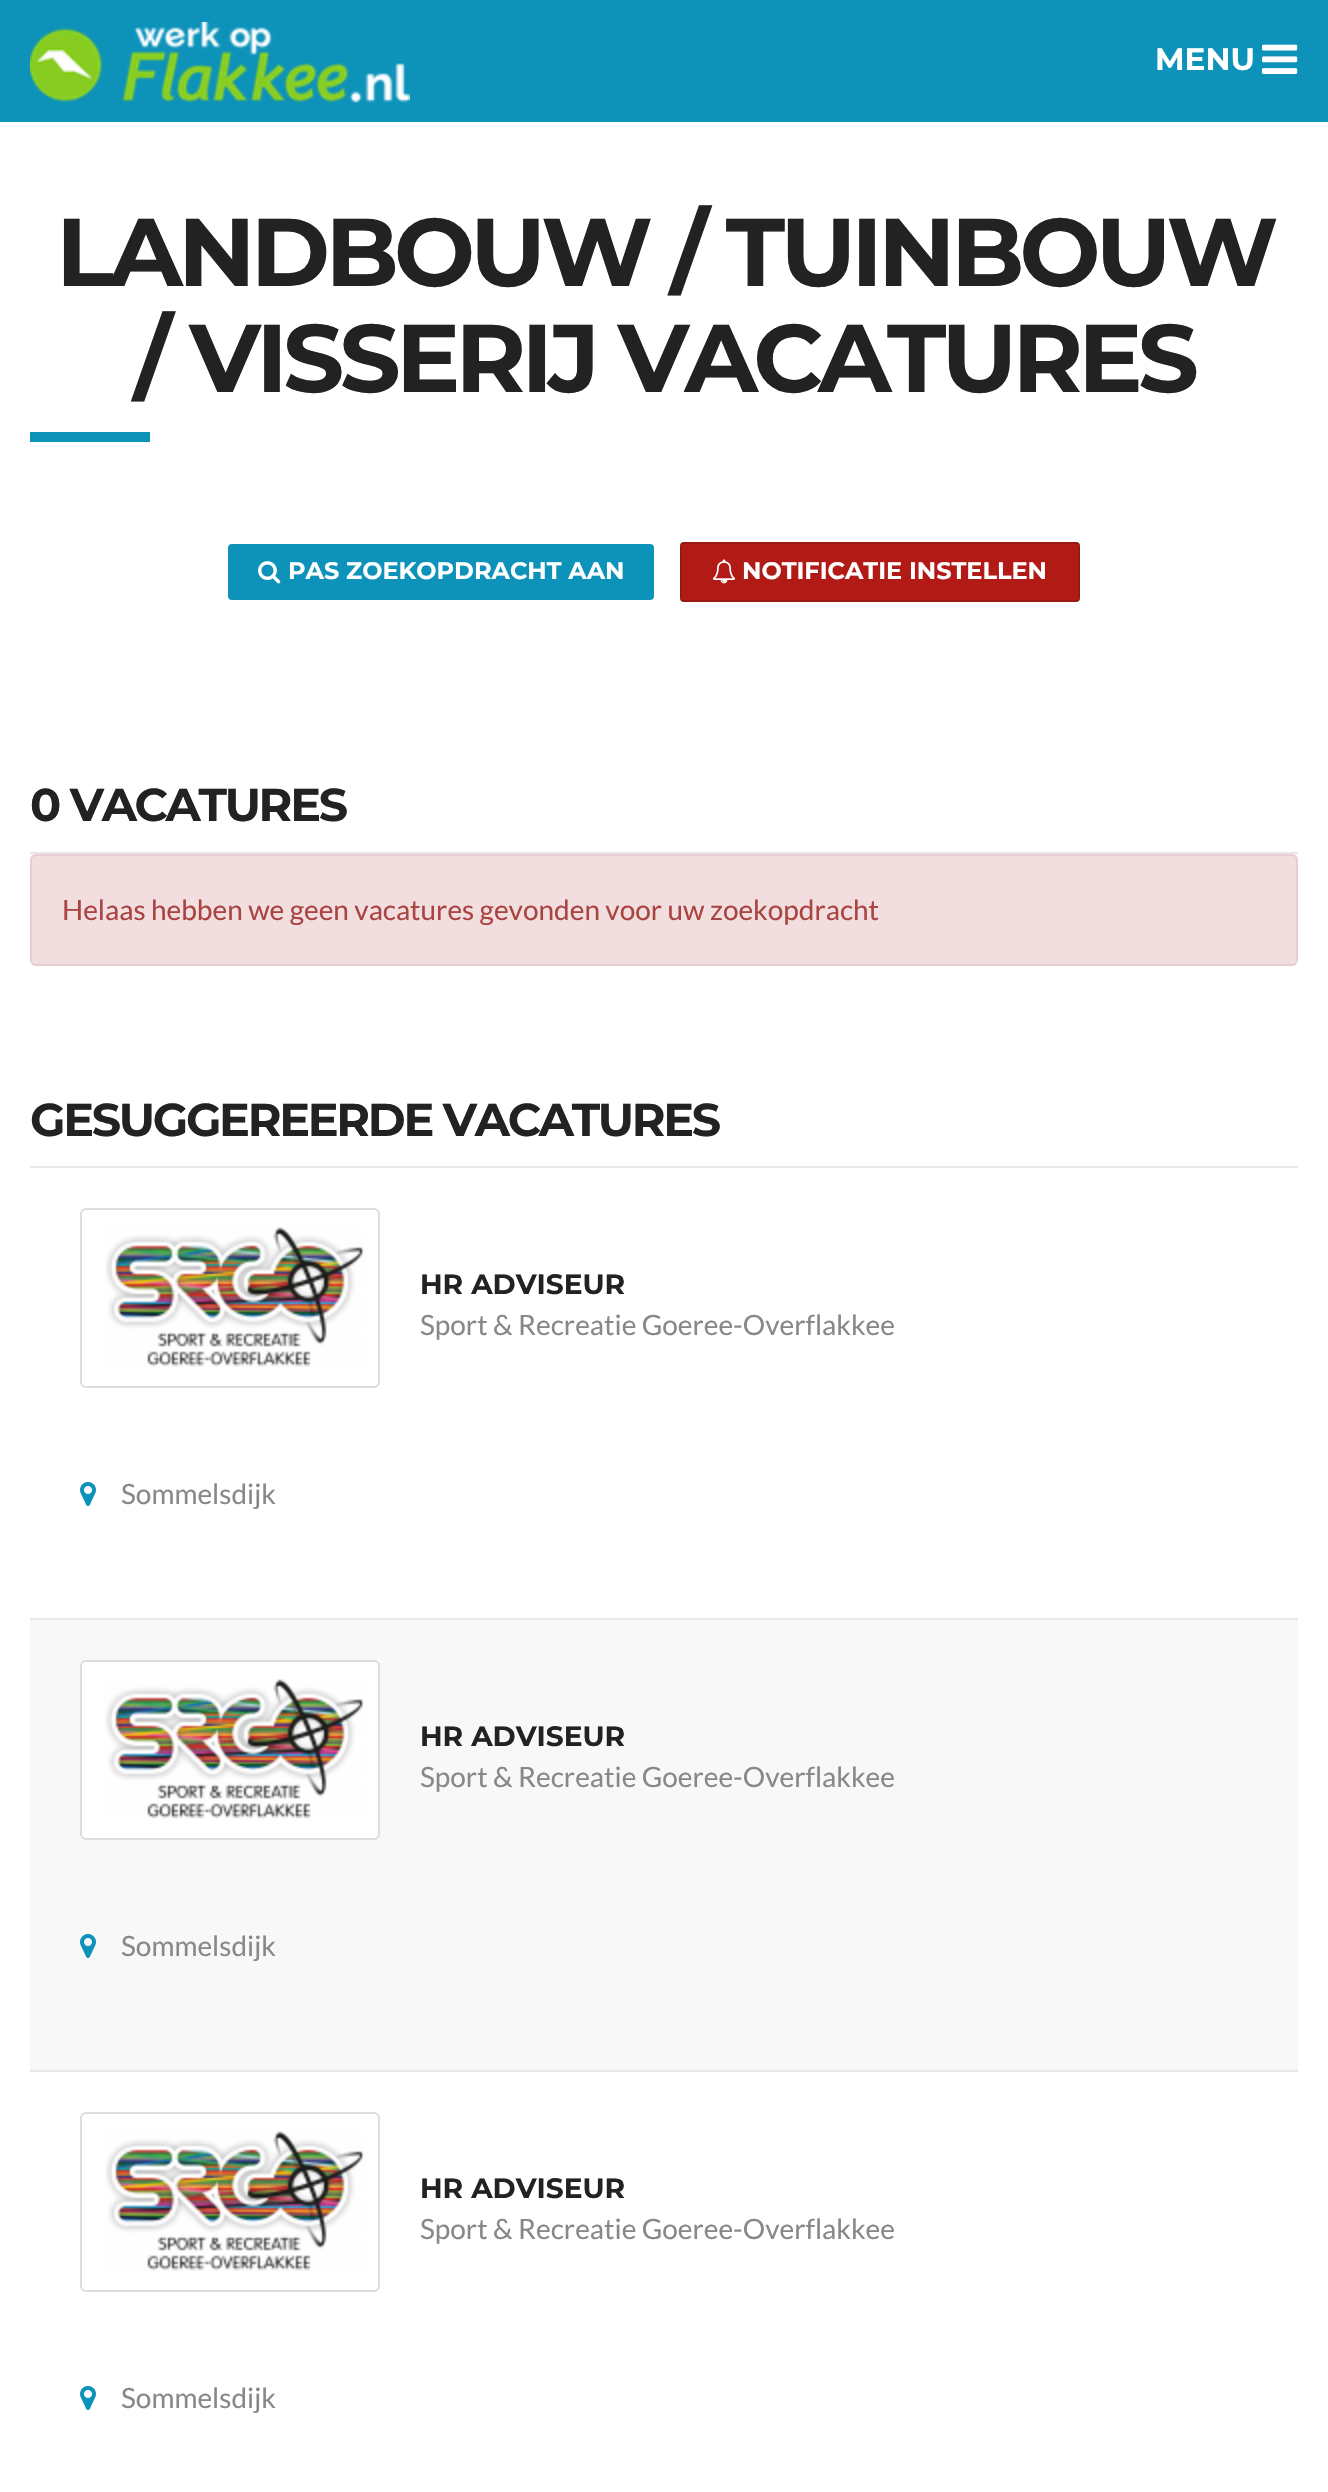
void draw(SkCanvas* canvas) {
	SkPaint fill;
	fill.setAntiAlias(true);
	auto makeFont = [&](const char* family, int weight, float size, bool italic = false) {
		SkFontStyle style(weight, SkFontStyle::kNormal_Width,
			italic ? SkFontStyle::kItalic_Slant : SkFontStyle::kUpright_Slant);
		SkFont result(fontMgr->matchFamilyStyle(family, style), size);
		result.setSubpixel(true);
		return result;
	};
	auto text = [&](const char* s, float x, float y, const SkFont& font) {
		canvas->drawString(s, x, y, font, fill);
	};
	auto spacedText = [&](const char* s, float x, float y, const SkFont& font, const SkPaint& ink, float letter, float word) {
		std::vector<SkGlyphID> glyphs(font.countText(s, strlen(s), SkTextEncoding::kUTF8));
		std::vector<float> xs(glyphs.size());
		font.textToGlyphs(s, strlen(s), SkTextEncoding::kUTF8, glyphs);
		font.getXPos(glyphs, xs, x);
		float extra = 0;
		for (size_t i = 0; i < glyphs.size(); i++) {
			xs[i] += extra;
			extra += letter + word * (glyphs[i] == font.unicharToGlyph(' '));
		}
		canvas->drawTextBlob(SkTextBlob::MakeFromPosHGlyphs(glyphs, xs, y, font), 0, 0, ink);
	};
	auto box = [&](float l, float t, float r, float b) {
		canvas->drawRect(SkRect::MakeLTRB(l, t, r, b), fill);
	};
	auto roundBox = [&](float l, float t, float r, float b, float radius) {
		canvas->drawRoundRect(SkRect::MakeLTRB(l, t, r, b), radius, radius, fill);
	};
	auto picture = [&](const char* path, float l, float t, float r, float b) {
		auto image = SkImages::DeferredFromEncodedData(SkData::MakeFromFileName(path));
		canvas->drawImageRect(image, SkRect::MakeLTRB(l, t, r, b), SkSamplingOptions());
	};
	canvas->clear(0xFFFFFFFF);
	fill.setColor(0xFF0D92BA);
	box(0, 0, 1328, 122);
	picture("image0.png", 30, 22, 410, 103);
	picture("image1.png", 1262, 44, 1298, 74);
	box(30, 432, 150, 442);
	roundBox(228, 544, 654, 600, 4);
	picture("image2.png", 258, 561, 281, 584);
	fill.setColor(0xFFB21A16);
	canvas->drawRoundRect(SkRect::MakeLTRB(681, 543, 1079, 601), 3, 3, fill);
	fill.setStyle(SkPaint::kStroke_Style);
	fill.setStrokeWidth(2);
	fill.setColor(0xFF9B1713);
	canvas->drawRoundRect(SkRect::MakeLTRB(681, 543, 1079, 601), 3, 3, fill);
	picture("image3.png", 712, 559, 736, 584);
	fill.setStyle(SkPaint::kFill_Style);
	fill.setColor(0xFFE7E7E7);
	box(30, 852, 1298, 854);
	fill.setColor(0xFFF2DEDE);
	canvas->drawRoundRect(SkRect::MakeLTRB(31, 855, 1297, 965), 5, 5, fill);
	fill.setStyle(SkPaint::kStroke_Style);
	fill.setColor(0xFFEBCCD1);
	canvas->drawRoundRect(SkRect::MakeLTRB(31, 855, 1297, 965), 5, 5, fill);
	fill.setStyle(SkPaint::kFill_Style);
	fill.setColor(0xFFE7E7E7);
	box(30, 1166, 1298, 1168);
	box(30, 1618, 1298, 1620);
	fill.setStyle(SkPaint::kStroke_Style);
	fill.setColor(0xFFDDDDDD);
	canvas->drawRoundRect(SkRect::MakeLTRB(81, 1209, 379, 1387), 5, 5, fill);
	picture("image4.png", 105, 1227, 365, 1367);
	picture("image5.png", 80, 1482, 96, 1506);
	fill.setStyle(SkPaint::kFill_Style);
	fill.setColor(0xFFF8F8F8);
	box(30, 1620, 1298, 2070);
	fill.setColor(0xFFE7E7E7);
	box(30, 2070, 1298, 2072);
	fill.setColor(0xFFFFFFFF);
	canvas->drawRoundRect(SkRect::MakeLTRB(81, 1661, 379, 1839), 5, 5, fill);
	fill.setStyle(SkPaint::kStroke_Style);
	fill.setColor(0xFFDDDDDD);
	canvas->drawRoundRect(SkRect::MakeLTRB(81, 1661, 379, 1839), 5, 5, fill);
	picture("image4.png", 105, 1679, 365, 1819);
	picture("image6.png", 80, 1934, 96, 1958);
	canvas->drawRoundRect(SkRect::MakeLTRB(81, 2113, 379, 2291), 5, 5, fill);
	picture("image4.png", 105, 2131, 365, 2271);
	picture("image5.png", 80, 2386, 96, 2410);
	auto font1 = makeFont("Montserrat", 100, 31);
	fill.setStyle(SkPaint::kFill_Style);
	fill.setColor(0xFFFFFFFF);
	text("MENU", 1155, 70, font1);
	auto font2 = makeFont("Montserrat", 100, 96);
	fill.setColor(0xFF222222);
	spacedText("LANDBOUW / TUINBOUW", 56, 286, font2, fill, -4.75f, 0);
	spacedText("/ VISSERIJ VACATURES", 134, 392, font2, fill, -4.75f, 0);
	auto font3 = makeFont("Montserrat", 100, 24);
	fill.setColor(0xFFFFFFFF);
	text("PAS ZOEKOPDRACHT AAN", 288, 579, font3);
	text("NOTIFICATIE INSTELLEN", 742, 579, font3);
	auto font4 = makeFont("Montserrat", 100, 46);
	fill.setColor(0xFF222222);
	spacedText("0 VACATURES", 30, 821, font4, fill, -2.3f, 0);
	auto font5 = makeFont("Lato", 400, 28);
	fill.setColor(0xFFA94442);
	text("Helaas hebben we geen vacatures gevonden voor uw zoekopdracht", 62, 920, font5);
	fill.setColor(0xFF222222);
	spacedText("GESUGGEREERDE VACATURES", 30, 1136, font4, fill, -2.3f, 0);
	auto font6 = makeFont("Montserrat", 100, 28);
	text("HR ADVISEUR", 420, 1294, font6);
	fill.setColor(0xFF888888);
	text("Sport & Recreatie Goeree-Overflakkee", 420, 1335, font5);
	text("Sommelsdijk", 121, 1504, font5);
	fill.setColor(0xFF222222);
	text("HR ADVISEUR", 420, 1746, font6);
	fill.setColor(0xFF888888);
	text("Sport & Recreatie Goeree-Overflakkee", 420, 1787, font5);
	text("Sommelsdijk", 121, 1956, font5);
	fill.setColor(0xFF222222);
	text("HR ADVISEUR", 420, 2198, font6);
	fill.setColor(0xFF888888);
	text("Sport & Recreatie Goeree-Overflakkee", 420, 2239, font5);
	text("Sommelsdijk", 121, 2408, font5);
}
